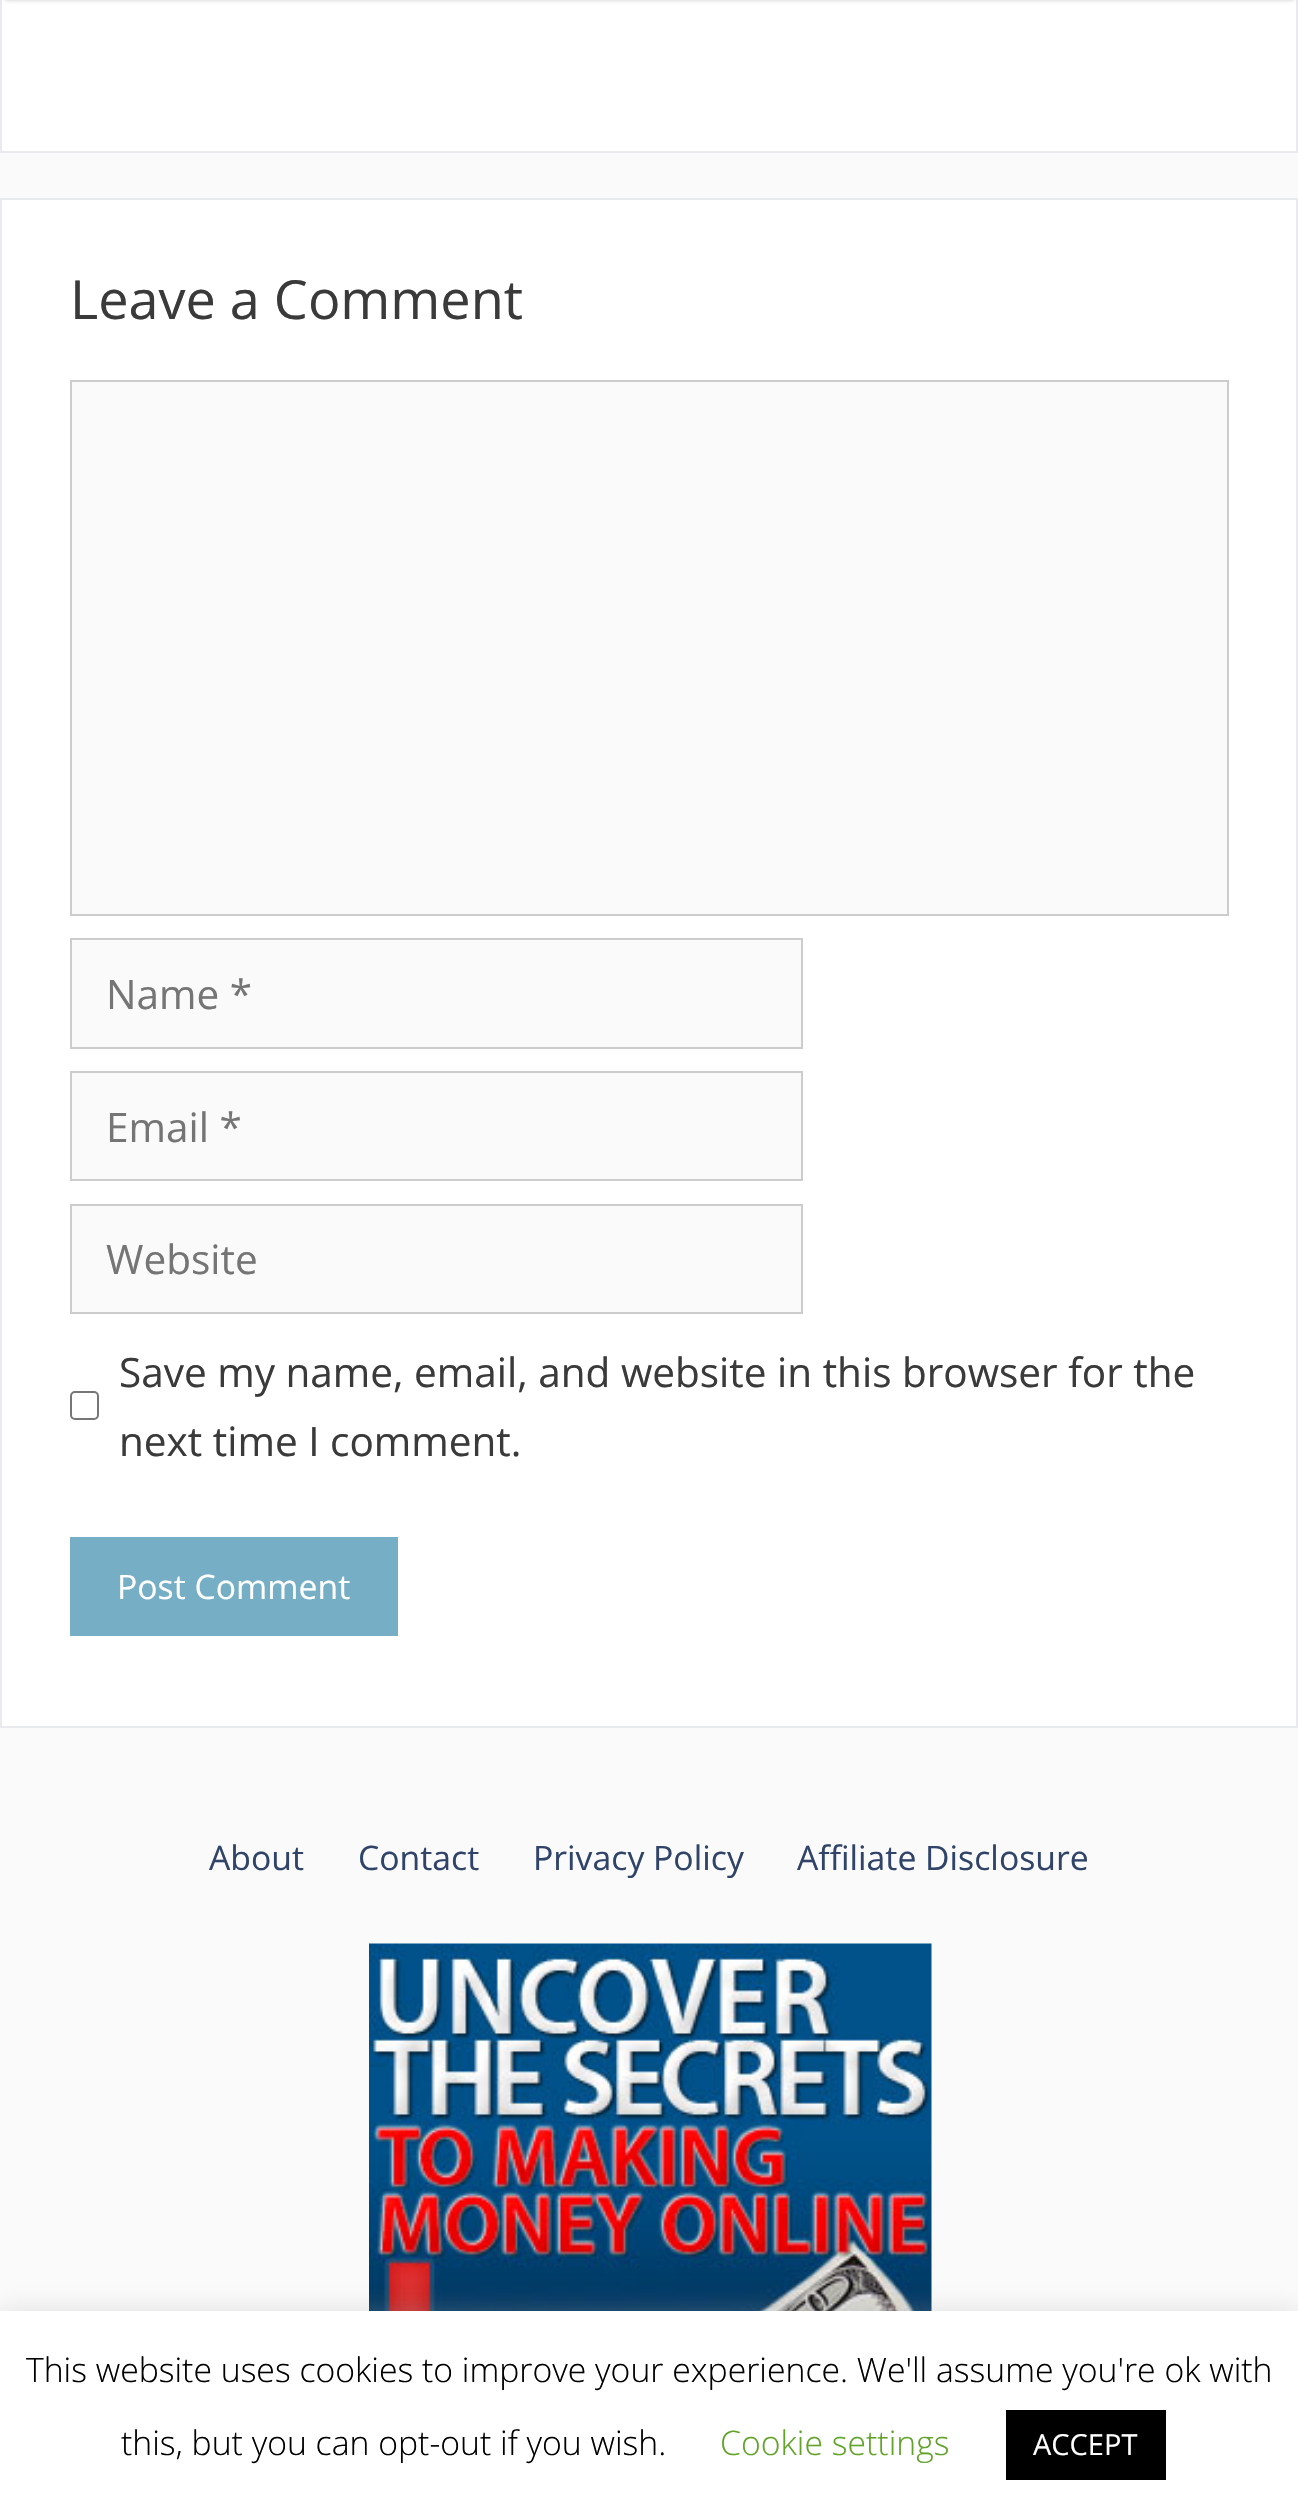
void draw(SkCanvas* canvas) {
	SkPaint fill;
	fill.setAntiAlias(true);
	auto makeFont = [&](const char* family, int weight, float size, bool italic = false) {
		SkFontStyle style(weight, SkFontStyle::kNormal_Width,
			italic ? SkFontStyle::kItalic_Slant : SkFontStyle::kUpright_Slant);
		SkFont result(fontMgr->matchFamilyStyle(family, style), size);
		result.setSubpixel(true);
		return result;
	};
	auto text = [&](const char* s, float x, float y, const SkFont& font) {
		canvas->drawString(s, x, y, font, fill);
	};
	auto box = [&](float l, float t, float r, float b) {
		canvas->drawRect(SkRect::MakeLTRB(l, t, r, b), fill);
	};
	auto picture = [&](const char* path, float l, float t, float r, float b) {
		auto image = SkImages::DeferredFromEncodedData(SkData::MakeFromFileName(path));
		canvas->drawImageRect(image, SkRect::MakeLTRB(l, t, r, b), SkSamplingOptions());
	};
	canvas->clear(0xFFFAFAFA);
	fill.setColor(0xFFFFFFFF);
	canvas->drawRect(SkRect::MakeLTRB(1, -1, 1297, 152), fill);
	fill.setStyle(SkPaint::kStroke_Style);
	fill.setStrokeWidth(2);
	fill.setColor(0xFFE8EAED);
	canvas->drawRect(SkRect::MakeLTRB(1, -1, 1297, 152), fill);
	fill.setStyle(SkPaint::kFill_Style);
	fill.setColor(0x33000000);
	fill.setMaskFilter(SkMaskFilter::MakeBlur(kNormal_SkBlurStyle, 2));
	canvas->drawRect(SkRect::MakeLTRB(5, -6, 1294, 0), fill);
	fill.setMaskFilter(nullptr);
	fill.setColor(0xFFFFFFFF);
	canvas->drawRect(SkRect::MakeLTRB(1, 199, 1297, 1727), fill);
	fill.setStyle(SkPaint::kStroke_Style);
	fill.setColor(0xFFE8EAED);
	canvas->drawRect(SkRect::MakeLTRB(1, 199, 1297, 1727), fill);
	fill.setStyle(SkPaint::kFill_Style);
	fill.setColor(0xFFFAFAFA);
	canvas->drawRect(SkRect::MakeLTRB(71, 381, 1228, 915), fill);
	fill.setStyle(SkPaint::kStroke_Style);
	fill.setColor(0xFFCCCCCC);
	canvas->drawRect(SkRect::MakeLTRB(71, 381, 1228, 915), fill);
	fill.setStyle(SkPaint::kFill_Style);
	fill.setColor(0xFFFAFAFA);
	canvas->drawRect(SkRect::MakeLTRB(71, 939, 802, 1048), fill);
	fill.setStyle(SkPaint::kStroke_Style);
	fill.setColor(0xFFCCCCCC);
	canvas->drawRect(SkRect::MakeLTRB(71, 939, 802, 1048), fill);
	fill.setStyle(SkPaint::kFill_Style);
	fill.setColor(0xFFFAFAFA);
	canvas->drawRect(SkRect::MakeLTRB(71, 1072, 802, 1180), fill);
	fill.setStyle(SkPaint::kStroke_Style);
	fill.setColor(0xFFCCCCCC);
	canvas->drawRect(SkRect::MakeLTRB(71, 1072, 802, 1180), fill);
	fill.setStyle(SkPaint::kFill_Style);
	fill.setColor(0xFFFAFAFA);
	canvas->drawRect(SkRect::MakeLTRB(71, 1205, 802, 1313), fill);
	fill.setStyle(SkPaint::kStroke_Style);
	fill.setColor(0xFFCCCCCC);
	canvas->drawRect(SkRect::MakeLTRB(71, 1205, 802, 1313), fill);
	fill.setColor(0xFF767676);
	canvas->drawRoundRect(SkRect::MakeLTRB(71, 1392, 98, 1419), 4, 4, fill);
	fill.setStyle(SkPaint::kFill_Style);
	fill.setColor(0xFF75AEC5);
	box(70, 1537, 398, 1636);
	picture("image0.png", 369, 1943, 932, 2311);
	fill.setColor(0x4DACABAB);
	fill.setMaskFilter(SkMaskFilter::MakeBlur(kNormal_SkBlurStyle, 11));
	canvas->drawRect(SkRect::MakeLTRB(0, 2309, 1298, 2516), fill);
	fill.setMaskFilter(nullptr);
	fill.setColor(0xFFFFFFFF);
	box(0, 2311, 1298, 2517);
	fill.setColor(0xFF000000);
	box(1006, 2410, 1166, 2480);
	auto font1 = makeFont("Open Sans", 400, 54);
	fill.setColor(0xFF3A3A3A);
	text("Leave a Comment", 70, 319, font1);
	auto font2 = makeFont("Open Sans", 400, 40.5f);
	fill.setColor(0xFF757575);
	text("Name *", 106, 1009, font2);
	text("Email *", 106, 1142, font2);
	text("Website", 106, 1274, font2);
	fill.setColor(0xFF3A3A3A);
	text("Save my name, email, and website in this browser for the", 119, 1387, font2);
	text("next time I comment.", 119, 1456, font2);
	auto font3 = makeFont("Open Sans", 400, 33.75f);
	fill.setColor(0xFFFFFFFF);
	text("Post Comment", 117, 1599, font3);
	fill.setColor(0xFF2F4468);
	text("About", 209, 1870, font3);
	text("Contact", 358, 1870, font3);
	text("Privacy Policy", 533, 1870, font3);
	text("Affiliate Disclosure", 797, 1870, font3);
	auto font4 = makeFont("Open Sans", 300, 33.75f);
	fill.setColor(0xFF000000);
	text("This website uses cookies to improve your experience. We'll assume you're ok with", 26, 2382, font4);
	text("this, but you can opt-out if you wish.", 121, 2455, font4);
	fill.setColor(0xFF62A329);
	text("Cookie settings", 720, 2455, font4);
	auto font5 = makeFont("Open Sans", 400, 29);
	fill.setColor(0xFFFFFFFF);
	text("ACCEPT", 1033, 2455, font5);
}
